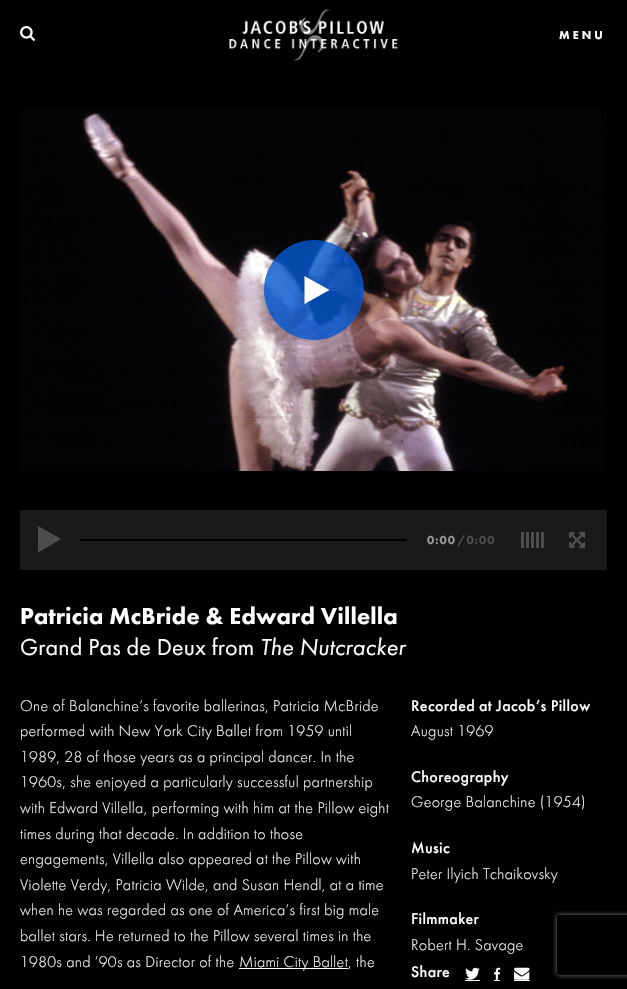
void draw(SkCanvas* canvas) {
	SkPaint fill;
	fill.setAntiAlias(true);
	auto makeFont = [&](const char* family, int weight, float size, bool italic = false) {
		SkFontStyle style(weight, SkFontStyle::kNormal_Width,
			italic ? SkFontStyle::kItalic_Slant : SkFontStyle::kUpright_Slant);
		SkFont result(fontMgr->matchFamilyStyle(family, style), size);
		result.setSubpixel(true);
		return result;
	};
	auto spacedText = [&](const char* s, float x, float y, const SkFont& font, const SkPaint& ink, float letter, float word) {
		std::vector<SkGlyphID> glyphs(font.countText(s, strlen(s), SkTextEncoding::kUTF8));
		std::vector<float> xs(glyphs.size());
		font.textToGlyphs(s, strlen(s), SkTextEncoding::kUTF8, glyphs);
		font.getXPos(glyphs, xs, x);
		float extra = 0;
		for (size_t i = 0; i < glyphs.size(); i++) {
			xs[i] += extra;
			extra += letter + word * (glyphs[i] == font.unicharToGlyph(' '));
		}
		canvas->drawTextBlob(SkTextBlob::MakeFromPosHGlyphs(glyphs, xs, y, font), 0, 0, ink);
	};
	auto box = [&](float l, float t, float r, float b) {
		canvas->drawRect(SkRect::MakeLTRB(l, t, r, b), fill);
	};
	auto picture = [&](const char* path, float l, float t, float r, float b) {
		auto image = SkImages::DeferredFromEncodedData(SkData::MakeFromFileName(path));
		canvas->drawImageRect(image, SkRect::MakeLTRB(l, t, r, b), SkSamplingOptions());
	};
	canvas->clear(0xFF000000);
	picture("image0.png", 20, 26, 35, 41);
	picture("image1.png", 229, 9, 398, 61);
	picture("image2.png", 20, 109, 607, 471);
	fill.setColor(0xCC0258D2);
	canvas->drawCircle(314, 290, 50, fill);
	fill.setColor(0xFFFFFFFF);
	canvas->drawPath(SkPathBuilder().moveTo(304.5f, 290).lineTo(304.5f, 276).lineTo(329.5f, 290).lineTo(304.5f, 304).close().detach(), fill);
	fill.setColor(0xFF1A1A1A);
	box(20, 510, 607, 570);
	fill.setColor(0xFF4D4D4D);
	canvas->drawPath(SkPathBuilder().moveTo(38, 526).lineTo(61, 539).lineTo(38, 552.5f).close().detach(), fill);
	fill.setColor(0xFF000000);
	box(80, 539, 407, 541);
	fill.setColor(0xFF4D4D4D);
	box(521, 532, 524, 548);
	box(526, 532, 529, 548);
	box(531, 532, 534, 548);
	box(536, 532, 539, 548);
	box(541, 532, 544, 548);
	picture("image3.png", 569, 532, 585, 549);
	fill.setColor(0xFFFFFFFF);
	box(239, 968, 348, 969);
	picture("image4.png", 465, 967, 480, 980);
	box(465, 980, 480, 981);
	picture("image5.png", 494, 967, 501, 980);
	box(494, 980, 500, 981);
	picture("image6.png", 513, 967, 530, 980);
	box(514, 980, 530, 981);
	canvas->save();
	canvas->clipPath(SkPathBuilder(SkPathFillType::kEvenOdd).moveTo(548, 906).lineTo(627, 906).lineTo(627, 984).lineTo(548, 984).close().moveTo(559, 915).lineTo(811, 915).cubicTo(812, 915, 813, 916, 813, 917).lineTo(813, 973).cubicTo(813, 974, 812, 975, 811, 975).lineTo(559, 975).cubicTo(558, 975, 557, 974, 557, 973).lineTo(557, 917).cubicTo(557, 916, 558, 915, 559, 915).close().detach(), true);
	fill.setColor(0xFF808080);
	fill.setMaskFilter(SkMaskFilter::MakeBlur(kNormal_SkBlurStyle, 2.5f));
	canvas->drawRoundRect(SkRect::MakeLTRB(557, 915, 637, 975), 2, 2, fill);
	fill.setMaskFilter(nullptr);
	canvas->restore();
	auto font1 = makeFont("Futura PT", 900, 12);
	fill.setColor(0xFFFFFFFF);
	spacedText("MENU", 559, 39, font1, fill, 3, 0);
	fill.setColor(0xFF989898);
	spacedText("0:00", 427, 544, font1, fill, 1, 0);
	fill.setColor(0xFF4D4D4D);
	spacedText("/0:00", 457, 544, font1, fill, 1, 0);
	auto font2 = makeFont("Futura PT", 900, 24);
	fill.setColor(0xFFFFFFFF);
	spacedText("Patricia McBride & Edward Villella", 20, 624, font2, fill, 0.15f, 0);
	auto font3 = makeFont("Futura PT", 400, 24);
	spacedText("Grand Pas de Deux from", 20, 655, font3, fill, 0.15f, 0);
	auto font4 = makeFont("Futura PT", 400, 24, true);
	spacedText("The Nutcracker", 260, 655, font4, fill, 0.15f, 0);
	auto font5 = makeFont("Futura PT", 300, 16);
	spacedText("One of Balanchine’s favorite ballerinas, Patricia McBride", 20, 711, font5, fill, 0.32f, 0);
	spacedText("performed with New York City Ballet from 1959 until", 20, 736, font5, fill, 0.32f, 0);
	spacedText("1989, 28 of those years as a principal dancer. In the", 20, 762, font5, fill, 0.32f, 0);
	spacedText("1960s, she enjoyed a particularly successful partnership", 20, 787, font5, fill, 0.32f, 0);
	spacedText("with Edward Villella, performing with him at the Pillow eight", 20, 813, font5, fill, 0.32f, 0);
	spacedText("times during that decade. In addition to those", 20, 839, font5, fill, 0.32f, 0);
	spacedText("engagements, Villella also appeared at the Pillow with", 20, 864, font5, fill, 0.32f, 0);
	spacedText("Violette Verdy, Patricia Wilde, and Susan Hendl, at a time", 20, 890, font5, fill, 0.32f, 0);
	spacedText("when he was regarded as one of America’s first big male", 20, 915, font5, fill, 0.32f, 0);
	spacedText("ballet stars. He returned to the Pillow several times in the", 20, 941, font5, fill, 0.32f, 0);
	spacedText("1980s and ’90s as Director of the", 20, 967, font5, fill, 0.32f, 0);
	spacedText("Miami City Ballet, the", 239, 967, font5, fill, 0.32f, 0);
	auto font6 = makeFont("Futura PT", 500, 16);
	spacedText("Recorded at Jacob’s Pillow", 411, 711, font6, fill, 0.32f, 0);
	spacedText("August 1969", 411, 736, font5, fill, 0.32f, 0);
	spacedText("Choreography", 411, 782, font6, fill, 0.32f, 0);
	spacedText("George Balanchine (1954)", 411, 807, font5, fill, 0.32f, 0);
	spacedText("Music", 411, 853, font6, fill, 0.32f, 0);
	spacedText("Peter Ilyich Tchaikovsky", 411, 879, font5, fill, 0.32f, 0);
	spacedText("Filmmaker", 411, 924, font6, fill, 0.32f, 0);
	spacedText("Robert H. Savage", 411, 950, font5, fill, 0.32f, 0);
	spacedText("Share", 411, 977, font6, fill, 0.32f, 0);
}
